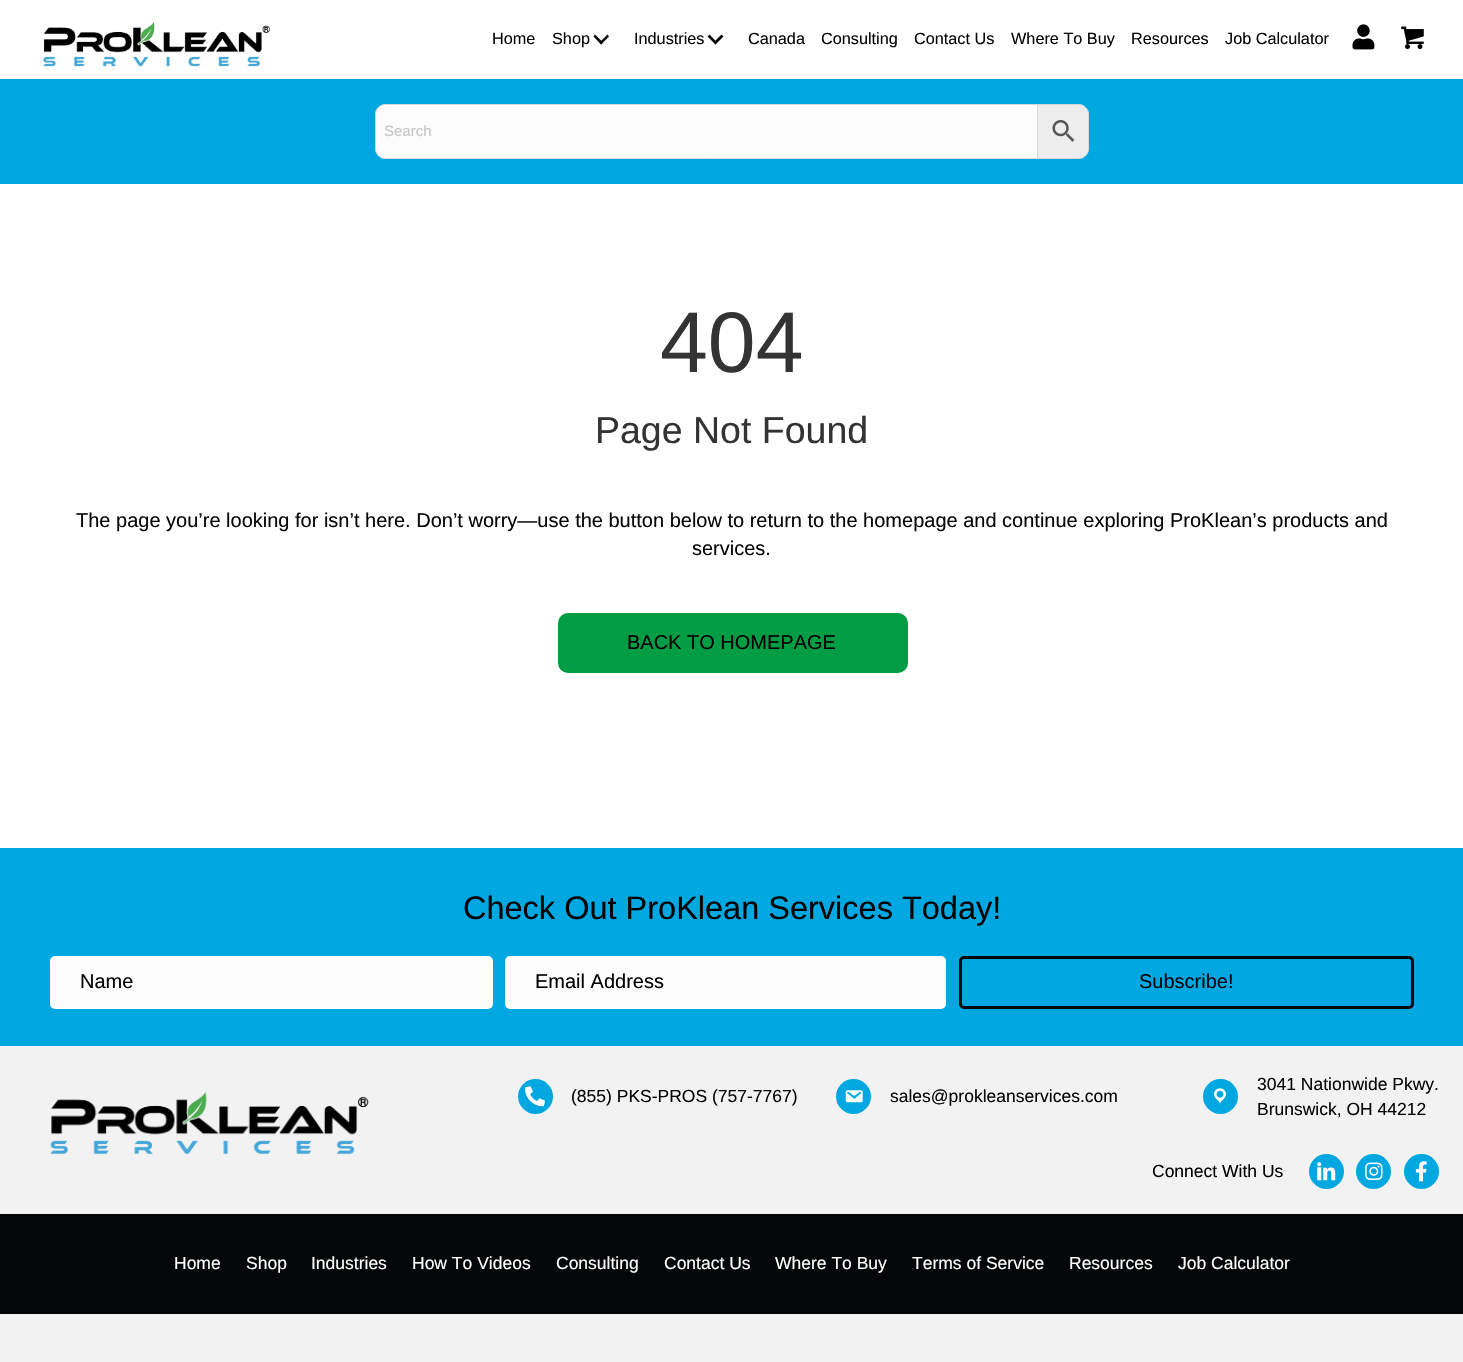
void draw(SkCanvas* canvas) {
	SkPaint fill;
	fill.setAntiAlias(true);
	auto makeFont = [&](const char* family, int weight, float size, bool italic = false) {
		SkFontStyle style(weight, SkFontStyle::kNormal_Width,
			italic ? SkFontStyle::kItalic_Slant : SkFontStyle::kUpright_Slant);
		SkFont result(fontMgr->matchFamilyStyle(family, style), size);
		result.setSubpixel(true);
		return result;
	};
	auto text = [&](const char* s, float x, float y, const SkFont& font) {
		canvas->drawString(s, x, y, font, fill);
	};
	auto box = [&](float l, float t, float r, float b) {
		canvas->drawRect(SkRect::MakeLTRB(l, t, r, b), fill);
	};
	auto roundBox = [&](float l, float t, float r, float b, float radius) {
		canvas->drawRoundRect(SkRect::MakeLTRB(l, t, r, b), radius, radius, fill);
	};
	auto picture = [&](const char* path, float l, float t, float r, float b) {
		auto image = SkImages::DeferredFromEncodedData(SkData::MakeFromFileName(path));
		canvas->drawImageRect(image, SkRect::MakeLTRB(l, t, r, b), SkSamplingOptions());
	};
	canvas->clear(0xFFF2F2F2);
	fill.setColor(0xFFFFFFFF);
	box(0, 0, 1463, 79);
	picture("image0.png", 43, 21, 271, 67);
	fill.setColor(0xFF050608);
	canvas->drawPath(SkPathBuilder().moveTo(607.5f, 34.5f).lineTo(609, 36.5f).lineTo(601, 44.5f).lineTo(599.5f, 42.5f).close().detach(), fill);
	canvas->drawPath(SkPathBuilder().moveTo(595, 34.5f).lineTo(603, 42.5f).lineTo(601, 44.5f).lineTo(593.5f, 36.5f).close().detach(), fill);
	canvas->drawPath(SkPathBuilder().moveTo(721.5f, 34.5f).lineTo(723.5f, 36.5f).lineTo(715.5f, 44.5f).lineTo(713.5f, 42.5f).close().detach(), fill);
	canvas->drawPath(SkPathBuilder().moveTo(709.5f, 34.5f).lineTo(717, 42.5f).lineTo(715.5f, 44.5f).lineTo(707.5f, 36.5f).close().detach(), fill);
	picture("image1.png", 1352, 24, 1375, 50);
	picture("image2.png", 1401, 26, 1424, 50);
	fill.setColor(0xFF00A7E1);
	box(0, 79, 1463, 184);
	fill.setColor(0xFFEDEDED);
	canvas->drawPath(SkPathBuilder().moveTo(1036.5f, 104.5f).lineTo(1079, 104.5f).cubicTo(1084, 104.5f, 1088.5f, 109, 1088.5f, 114).lineTo(1088.5f, 149).cubicTo(1088.5f, 154, 1084, 158.5f, 1079, 158.5f).lineTo(1036.5f, 158.5f).close().detach(), fill);
	fill.setStyle(SkPaint::kStroke_Style);
	fill.setStrokeWidth(1);
	fill.setColor(0xFFD8D8D8);
	canvas->drawPath(SkPathBuilder().moveTo(1036.5f, 104.5f).lineTo(1079, 104.5f).cubicTo(1084, 104.5f, 1088.5f, 109, 1088.5f, 114).lineTo(1088.5f, 149).cubicTo(1088.5f, 154, 1084, 158.5f, 1079, 158.5f).lineTo(1036.5f, 158.5f).close().detach(), fill);
	fill.setStyle(SkPaint::kFill_Style);
	fill.setColor(0xFFFCFCFC);
	canvas->drawPath(SkPathBuilder().moveTo(385, 104.5f).lineTo(1037.5f, 104.5f).lineTo(1037.5f, 158.5f).lineTo(385, 158.5f).cubicTo(380, 158.5f, 375.5f, 154, 375.5f, 149).lineTo(375.5f, 114).cubicTo(375.5f, 109, 380, 104.5f, 385, 104.5f).close().detach(), fill);
	fill.setStyle(SkPaint::kStroke_Style);
	fill.setColor(0xFFD8D8D8);
	canvas->drawPath(SkPathBuilder().moveTo(385, 104.5f).lineTo(1037.5f, 104.5f).lineTo(1037.5f, 158.5f).lineTo(385, 158.5f).cubicTo(380, 158.5f, 375.5f, 154, 375.5f, 149).lineTo(375.5f, 114).cubicTo(375.5f, 109, 380, 104.5f, 385, 104.5f).close().detach(), fill);
	picture("image3.png", 1052, 120, 1075, 142);
	fill.setStyle(SkPaint::kFill_Style);
	fill.setColor(0xFFFFFFFF);
	box(0, 184, 1463, 848);
	fill.setColor(0xFF009D44);
	roundBox(558, 613, 908, 673, 10);
	fill.setColor(0xFF00A7E1);
	box(0, 848, 1463, 1046);
	fill.setColor(0xFFFCFCFC);
	roundBox(50, 956, 493, 1009, 5);
	roundBox(505, 956, 946, 1009, 5);
	fill.setStyle(SkPaint::kStroke_Style);
	fill.setStrokeWidth(3);
	fill.setColor(0xFF050608);
	canvas->drawRoundRect(SkRect::MakeLTRB(960.5f, 957.5f, 1412.5f, 1007.5f), 3.5f, 3.5f, fill);
	picture("image4.png", 50, 1091, 369, 1155);
	fill.setStyle(SkPaint::kFill_Style);
	fill.setColor(0xFF00A7E1);
	canvas->drawCircle(535.5f, 1096.5f, 17.5f, fill);
	picture("image5.png", 525, 1086, 545, 1107);
	canvas->drawCircle(853.5f, 1096.5f, 17.5f, fill);
	picture("image6.png", 845, 1090, 863, 1103);
	canvas->drawCircle(1220.5f, 1096.5f, 17.5f, fill);
	picture("image7.png", 1214, 1088, 1226, 1104);
	canvas->drawCircle(1326.5f, 1171.5f, 17.5f, fill);
	picture("image8.png", 1317, 1162, 1336, 1181);
	canvas->drawCircle(1373.5f, 1171.5f, 17.5f, fill);
	picture("image9.png", 1365, 1162, 1383, 1180);
	canvas->drawCircle(1421.5f, 1171.5f, 17.5f, fill);
	picture("image10.png", 1415, 1161, 1427, 1182);
	fill.setColor(0xFF050608);
	box(0, 1214, 1463, 1314);
	auto font1 = makeFont("Liberation Sans", 400, 16.25f);
	text("Home", 492, 44, font1);
	text("Shop", 552, 44, font1);
	text("Industries", 634, 44, font1);
	text("Canada", 748, 44, font1);
	text("Consulting", 821, 44, font1);
	text("Contact Us", 914, 44, font1);
	text("Where To Buy", 1011, 44, font1);
	text("Resources", 1131, 44, font1);
	text("Job Calculator", 1225, 44, font1);
	auto font2 = makeFont("Liberation Sans", 400, 15);
	fill.setColor(0xFFC6C6C6);
	text("Search", 384, 136, font2);
	auto font3 = makeFont("Liberation Sans", 400, 86);
	fill.setColor(0xFF333333);
	text("404", 660, 372, font3);
	auto font4 = makeFont("Liberation Sans", 400, 37.5f);
	text("Page Not Found", 595, 443, font4);
	auto font5 = makeFont("Liberation Sans", 400, 20);
	fill.setColor(0xFF050608);
	text("The page you’re looking for isn’t here. Don’t worry—use the button below to return to the homepage and continue exploring ProKlean’s products and", 76, 527, font5);
	text("services.", 692, 555, font5);
	fill.setColor(0xFF000000);
	text("BACK TO HOMEPAGE", 627, 649, font5);
	auto font6 = makeFont("Liberation Sans", 400, 32.5f);
	text("Check Out ProKlean Services Today!", 463, 919, font6);
	text("Name", 80, 988, font5);
	text("Email Address", 535, 988, font5);
	fill.setColor(0xFF050608);
	text("Subscribe!", 1139, 988, font5);
	auto font7 = makeFont("Liberation Sans", 400, 17.5f);
	text("(855) PKS-PROS (757-7767)", 571, 1102, font7);
	text("sales@prokleanservices.com", 890, 1102, font7);
	text("3041 Nationwide Pkwy.", 1257, 1090, font7);
	text("Brunswick, OH 44212", 1257, 1115, font7);
	fill.setColor(0xFF000000);
	text("Connect With Us", 1152, 1177, font7);
	fill.setColor(0xFFFFFFFF);
	text("Home", 174, 1269, font7);
	text("Shop", 246, 1269, font7);
	text("Industries", 311, 1269, font7);
	text("How To Videos", 412, 1269, font7);
	text("Consulting", 556, 1269, font7);
	text("Contact Us", 664, 1269, font7);
	text("Where To Buy", 775, 1269, font7);
	text("Terms of Service", 912, 1269, font7);
	text("Resources", 1069, 1269, font7);
	text("Job Calculator", 1178, 1269, font7);
}
